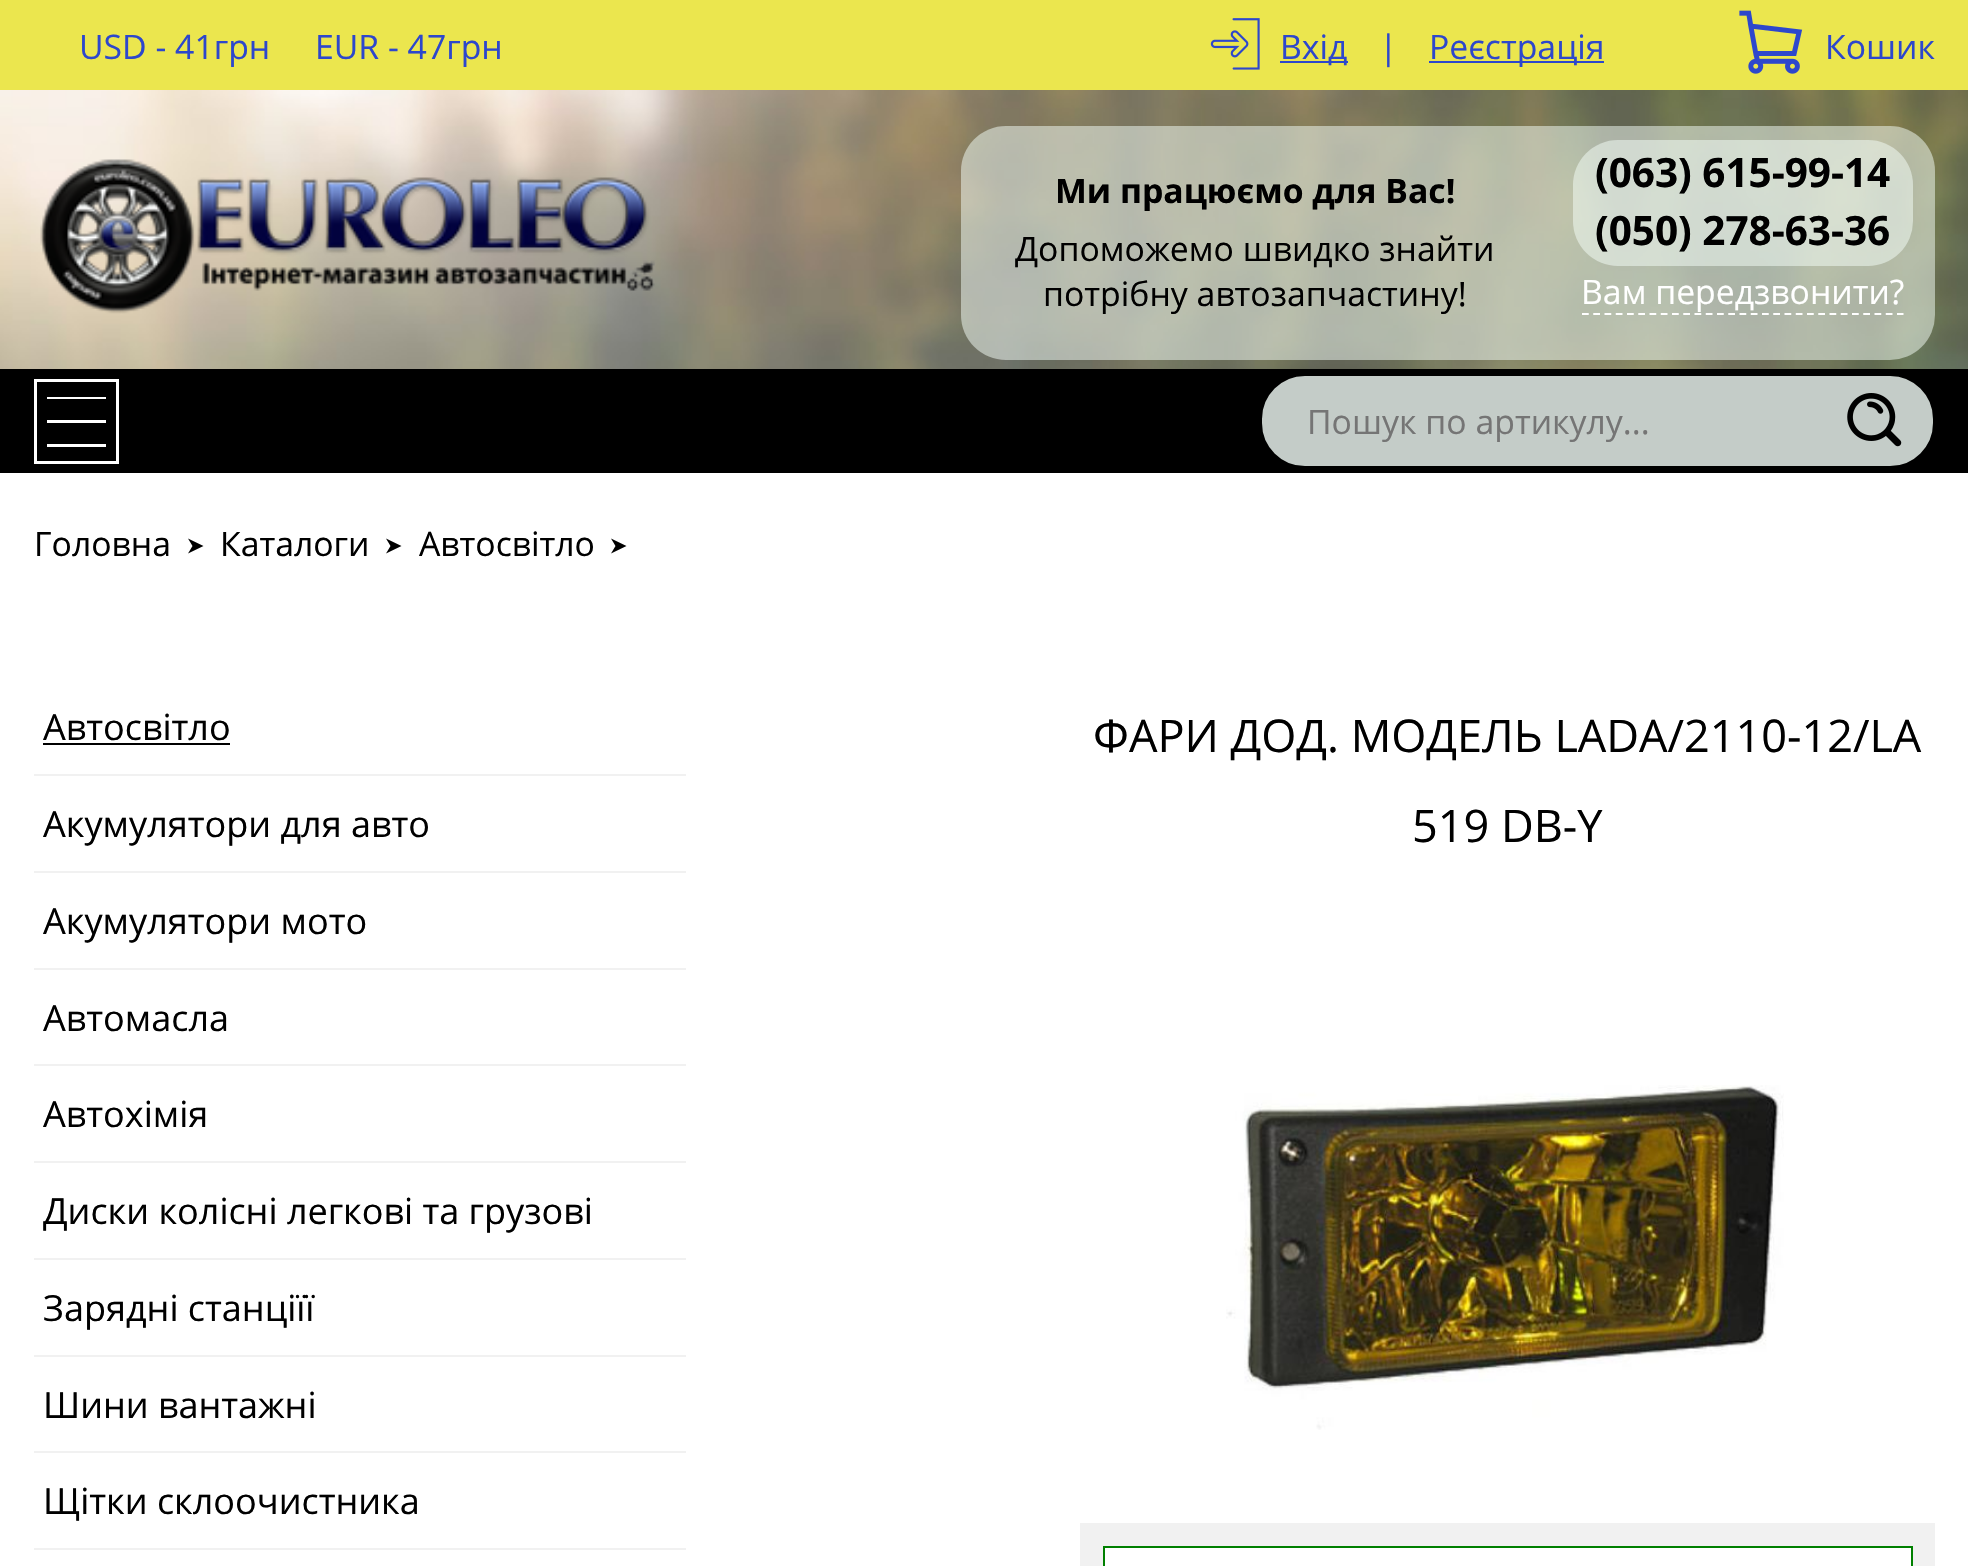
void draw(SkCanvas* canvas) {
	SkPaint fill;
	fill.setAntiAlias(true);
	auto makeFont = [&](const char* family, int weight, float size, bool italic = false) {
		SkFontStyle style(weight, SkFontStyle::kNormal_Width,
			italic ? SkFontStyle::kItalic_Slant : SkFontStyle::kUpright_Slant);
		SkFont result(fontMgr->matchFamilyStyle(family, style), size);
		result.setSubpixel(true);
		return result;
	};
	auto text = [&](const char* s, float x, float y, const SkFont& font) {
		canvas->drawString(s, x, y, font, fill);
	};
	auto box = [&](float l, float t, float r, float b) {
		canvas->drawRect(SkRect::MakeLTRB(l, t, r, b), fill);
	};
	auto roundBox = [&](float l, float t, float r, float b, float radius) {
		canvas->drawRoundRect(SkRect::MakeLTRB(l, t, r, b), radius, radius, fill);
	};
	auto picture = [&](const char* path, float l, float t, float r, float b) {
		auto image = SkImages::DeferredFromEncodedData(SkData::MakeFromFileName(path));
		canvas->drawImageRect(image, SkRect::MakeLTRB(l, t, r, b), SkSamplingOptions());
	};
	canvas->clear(0xFFFFFFFF);
	picture("image0.png", 0, 90, 1968, 369);
	fill.setColor(0xFFEBE64E);
	box(0, 0, 1968, 90);
	picture("image1.png", 1210, 18, 1260, 70);
	fill.setColor(0xFF2D47CC);
	box(1280, 61, 1348, 63);
	box(1429, 61, 1604, 63);
	picture("image2.png", 1739, 10, 1803, 74);
	picture("image3.png", 40, 159, 655, 314);
	fill.setColor(0x80F5FFFA);
	roundBox(961, 126, 1935, 360, 45);
	roundBox(1573, 140, 1913, 266, 45);
	fill.setStyle(SkPaint::kStroke_Style);
	fill.setStrokeWidth(2.2f);
	fill.setColor(0xFFFFFFFF);
	fill.setPathEffect(SkDashPathEffect::Make({{6.75f, 4.5f}}, 0));
	canvas->drawPath(SkPathBuilder().moveTo(1582, 314).lineTo(1903.5f, 314).detach(), fill);
	fill.setPathEffect(nullptr);
	fill.setStyle(SkPaint::kFill_Style);
	fill.setColor(0xFF000000);
	box(0, 369, 1968, 473);
	fill.setColor(0xFFC4CCC8);
	canvas->drawRoundRect(SkRect::MakeLTRB(1261, 375, 1934, 467), 44, 44, fill);
	fill.setStyle(SkPaint::kStroke_Style);
	fill.setStrokeWidth(2);
	fill.setColor(0xFF000000);
	canvas->drawRoundRect(SkRect::MakeLTRB(1261, 375, 1934, 467), 44, 44, fill);
	picture("image4.png", 1847, 393, 1902, 447);
	fill.setStyle(SkPaint::kFill_Style);
	fill.setColor(0xFFFFFFFF);
	canvas->drawPath(SkPathBuilder().moveTo(47, 397).lineTo(106, 397).lineTo(106, 399).lineTo(47, 399).close().moveTo(47, 420).lineTo(106, 420).lineTo(106, 423).lineTo(47, 423).close().moveTo(47, 444).lineTo(106, 444).lineTo(106, 447).lineTo(47, 447).close().moveTo(34, 379).lineTo(34, 464).lineTo(119, 464).lineTo(119, 379).close().moveTo(116, 461).lineTo(37, 461).lineTo(37, 382).lineTo(116, 382).close().detach(), fill);
	fill.setColor(0xFF000000);
	canvas->drawPath(SkPathBuilder().moveTo(188, 553.5f).lineTo(192.5f, 546).lineTo(188, 538.5f).lineTo(203.5f, 546).close().detach(), fill);
	canvas->drawPath(SkPathBuilder().moveTo(386, 553.5f).lineTo(390.5f, 546).lineTo(386, 538.5f).lineTo(401.5f, 546).close().detach(), fill);
	canvas->drawPath(SkPathBuilder().moveTo(611, 553.5f).lineTo(615.5f, 546).lineTo(611, 538.5f).lineTo(626.5f, 546).close().detach(), fill);
	fill.setColor(0xFFF1F1F1);
	box(34, 774, 686, 776);
	fill.setColor(0xFF000000);
	box(43, 743, 230, 745);
	fill.setColor(0xFFF1F1F1);
	box(34, 871, 686, 873);
	box(34, 968, 686, 970);
	box(34, 1064, 686, 1066);
	box(34, 1161, 686, 1163);
	box(34, 1258, 686, 1260);
	box(34, 1355, 686, 1357);
	box(34, 1451, 686, 1453);
	box(34, 1548, 686, 1550);
	picture("image5.png", 1226, 1085, 1784, 1430);
	box(1080, 1523, 1935, 1566);
	fill.setColor(0xFFFFFFFF);
	canvas->drawRect(SkRect::MakeLTRB(1104, 1547, 1912, 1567), fill);
	fill.setStyle(SkPaint::kStroke_Style);
	fill.setColor(0xFF008000);
	canvas->drawRect(SkRect::MakeLTRB(1104, 1547, 1912, 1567), fill);
	auto font1 = makeFont("Open Sans", 400, 33.75f);
	fill.setStyle(SkPaint::kFill_Style);
	fill.setColor(0xFF2D47CC);
	text("USD - 41грн", 79, 59, font1);
	text("EUR - 47грн", 315, 59, font1);
	text("Вхід", 1280, 59, font1);
	text("|", 1379, 59, font1);
	text("Реєстрація", 1429, 59, font1);
	text("Кошик", 1825, 59, font1);
	auto font2 = makeFont("Open Sans", 700, 33.75f);
	fill.setColor(0xFF000000);
	text("Ми працюємо для Вас!", 1055, 203, font2);
	text("Допоможемо швидко знайти", 1015, 261, font1);
	text("потрібну автозапчастину!", 1043, 306, font1);
	auto font3 = makeFont("Open Sans", 700, 40.5f);
	text("(063) 615-99-14", 1595, 187, font3);
	text("(050) 278-63-36", 1595, 245, font3);
	fill.setColor(0xFFFFFFFF);
	text("Вам передзвонити?", 1581, 304, font1);
	fill.setColor(0xFF757575);
	text("Пошук по артикулу...", 1307, 434, font1);
	fill.setColor(0xFF000000);
	text("Головна", 34, 556, font1);
	text("Каталоги", 220, 556, font1);
	text("Автосвітло", 419, 556, font1);
	auto font4 = makeFont("Open Sans", 400, 36);
	text("Автосвітло", 43, 740, font4);
	text("Акумулятори для авто", 43, 837, font4);
	text("Акумулятори мото", 43, 934, font4);
	text("Автомасла", 43, 1031, font4);
	text("Автохімія", 43, 1127, font4);
	text("Диски колісні легкові та грузові", 43, 1224, font4);
	text("Зарядні станціїї", 43, 1321, font4);
	text("Шини вантажні", 43, 1418, font4);
	text("Щітки склоочистника", 43, 1514, font4);
	auto font5 = makeFont("Open Sans", 400, 45);
	text("ФАРИ ДОД. МОДЕЛЬ LADA/2110-12/LA", 1093, 752, font5);
	text("519 DB-Y", 1412, 842, font5);
}
